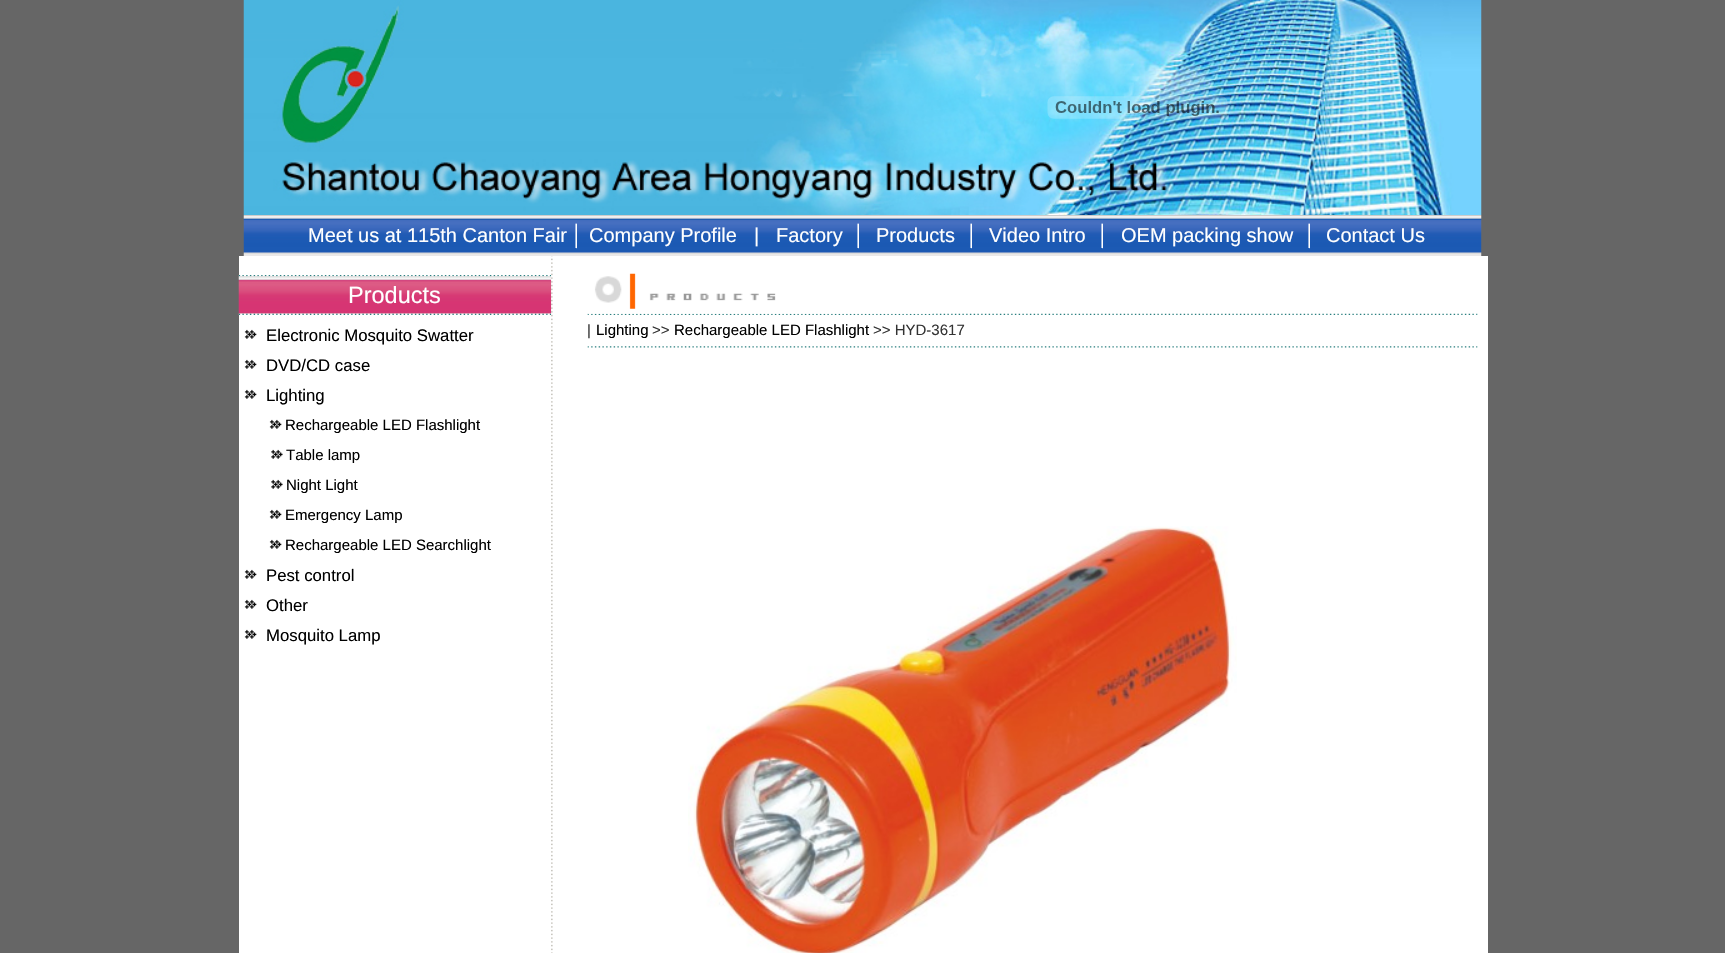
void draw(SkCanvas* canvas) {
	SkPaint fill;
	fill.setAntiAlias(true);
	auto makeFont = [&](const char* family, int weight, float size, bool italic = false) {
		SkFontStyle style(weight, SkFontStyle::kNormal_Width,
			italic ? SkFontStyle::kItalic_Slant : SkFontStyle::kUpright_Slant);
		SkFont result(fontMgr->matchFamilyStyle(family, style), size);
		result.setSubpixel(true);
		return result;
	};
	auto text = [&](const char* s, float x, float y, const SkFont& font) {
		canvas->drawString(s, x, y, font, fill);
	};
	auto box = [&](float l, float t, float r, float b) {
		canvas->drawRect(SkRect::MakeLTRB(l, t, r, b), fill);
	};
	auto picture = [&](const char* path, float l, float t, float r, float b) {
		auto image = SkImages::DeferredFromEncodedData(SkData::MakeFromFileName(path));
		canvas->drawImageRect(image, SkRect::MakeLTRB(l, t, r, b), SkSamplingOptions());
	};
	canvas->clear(0xFF666666);
	picture("image0.png", 243, 0, 1482, 215);
	picture("image1.png", 1047, 96, 1228, 119);
	picture("image2.png", 243, 215, 1482, 256);
	fill.setColor(0xFFFFFFFF);
	box(239, 256, 1488, 953);
	picture("image3.png", 238, 275, 552, 277);
	picture("image4.png", 238, 276, 552, 314);
	picture("image5.png", 238, 313, 552, 315);
	picture("image6.png", 244, 329, 257, 339);
	picture("image6.png", 244, 359, 257, 369);
	picture("image6.png", 244, 389, 257, 399);
	picture("image6.png", 269, 419, 282, 429);
	picture("image7.png", 271, 449, 283, 459);
	picture("image7.png", 271, 479, 283, 489);
	picture("image6.png", 269, 509, 282, 519);
	picture("image6.png", 269, 539, 282, 549);
	picture("image6.png", 244, 569, 257, 579);
	picture("image6.png", 244, 599, 257, 609);
	picture("image6.png", 244, 629, 257, 639);
	picture("image8.png", 551, 256, 553, 953);
	picture("image10.png", 587, 313, 1478, 315);
	picture("image9.png", 587, 273, 933, 314);
	picture("image11.png", 587, 346, 1478, 348);
	picture("image12.png", 688, 526, 1237, 953);
	auto font1 = makeFont("Liberation Sans", 400, 20);
	text("Meet us at 115th Canton Fair", 308, 242, font1);
	text("│ Company Profile", 571, 242, font1);
	text("|", 754, 242, font1);
	text("Factory", 776, 242, font1);
	text("│", 853, 242, font1);
	text("Products", 876, 242, font1);
	text("│", 966, 242, font1);
	text("Video Intro", 989, 242, font1);
	text("│", 1097, 242, font1);
	text("OEM packing show", 1121, 242, font1);
	text("│", 1304, 242, font1);
	text("Contact Us", 1326, 242, font1);
	auto font2 = makeFont("Liberation Sans", 400, 23.5f);
	text("Products", 348, 303, font2);
	auto font3 = makeFont("Liberation Sans", 400, 16.75f);
	fill.setColor(0xFF000000);
	text("Electronic Mosquito Swatter", 266, 341, font3);
	text("DVD/CD case", 266, 371, font3);
	text("Lighting", 266, 401, font3);
	auto font4 = makeFont("Liberation Sans", 400, 15);
	text("Rechargeable LED Flashlight", 285, 430, font4);
	text("Table lamp", 286, 460, font4);
	text("Night Light", 286, 490, font4);
	text("Emergency Lamp", 285, 520, font4);
	text("Rechargeable LED Searchlight", 285, 550, font4);
	text("Pest control", 266, 581, font3);
	text("Other", 266, 611, font3);
	text("Mosquito Lamp", 266, 641, font3);
	fill.setColor(0xFF333333);
	text("|", 587, 335, font4);
	fill.setColor(0xFF000000);
	text("Lighting", 596, 335, font4);
	fill.setColor(0xFF333333);
	text(">>", 652, 335, font4);
	fill.setColor(0xFF000000);
	text("Rechargeable LED Flashlight", 674, 335, font4);
	fill.setColor(0xFF333333);
	text(">> HYD-3617", 873, 335, font4);
}
